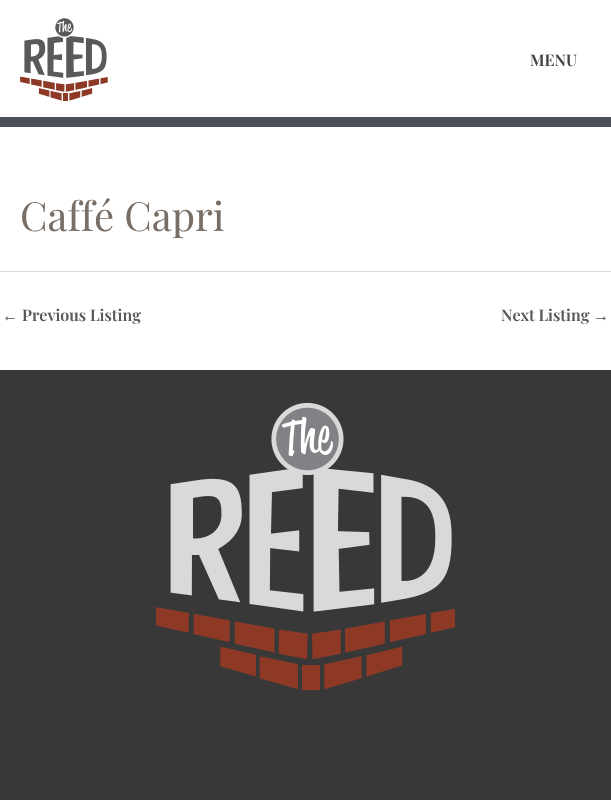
void draw(SkCanvas* canvas) {
	SkPaint fill;
	fill.setAntiAlias(true);
	auto makeFont = [&](const char* family, int weight, float size, bool italic = false) {
		SkFontStyle style(weight, SkFontStyle::kNormal_Width,
			italic ? SkFontStyle::kItalic_Slant : SkFontStyle::kUpright_Slant);
		SkFont result(fontMgr->matchFamilyStyle(family, style), size);
		result.setSubpixel(true);
		return result;
	};
	auto text = [&](const char* s, float x, float y, const SkFont& font) {
		canvas->drawString(s, x, y, font, fill);
	};
	auto box = [&](float l, float t, float r, float b) {
		canvas->drawRect(SkRect::MakeLTRB(l, t, r, b), fill);
	};
	auto picture = [&](const char* path, float l, float t, float r, float b) {
		auto image = SkImages::DeferredFromEncodedData(SkData::MakeFromFileName(path));
		canvas->drawImageRect(image, SkRect::MakeLTRB(l, t, r, b), SkSamplingOptions());
	};
	canvas->clear(0xFFFFFFFF);
	fill.setColor(0xFF4B4F58);
	box(0, 117, 611, 127);
	picture("image0.png", 20, 18, 108, 101);
	fill.setColor(0xFFDDDDDD);
	box(0, 271, 611, 272);
	fill.setColor(0xFF383838);
	box(0, 370, 611, 800);
	picture("image1.png", 156, 402, 455, 690);
	auto font1 = makeFont("Playfair Display", 600, 16);
	fill.setColor(0xFF424242);
	text("MENU", 530, 66, font1);
	auto font2 = makeFont("Playfair Display", 400, 40);
	fill.setColor(0xFF796E65);
	text("Caffé Capri", 20, 231, font2);
	auto font3 = makeFont("Liberation Serif", 700, 16);
	fill.setColor(0xFF595957);
	text("←", 2, 321, font3);
	text("Previous Listing", 22, 321, font1);
	text("Next Listing", 501, 321, font1);
	text("→", 593, 321, font3);
}
